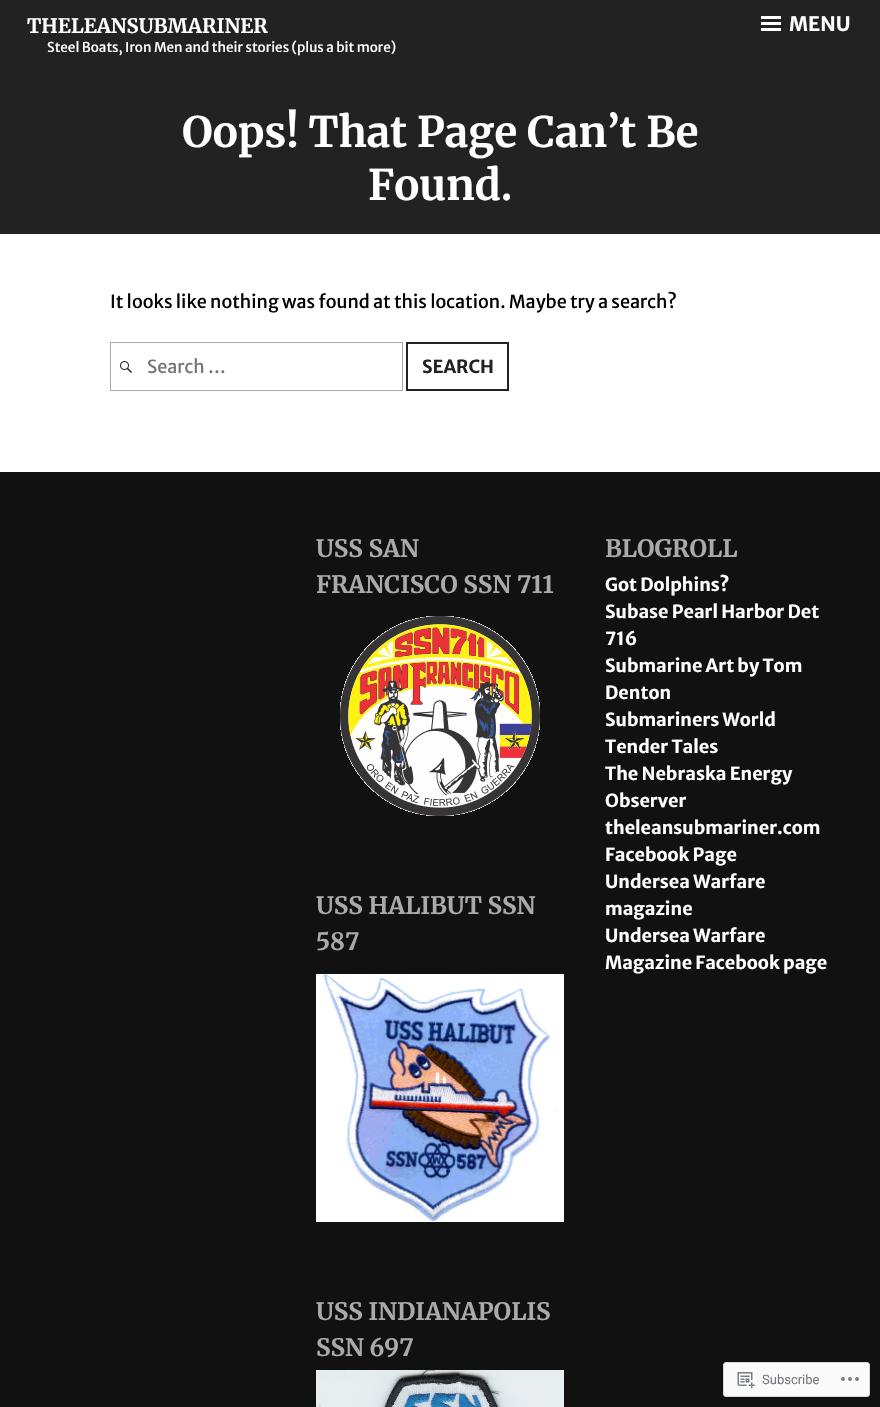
void draw(SkCanvas* canvas) {
	SkPaint fill;
	fill.setAntiAlias(true);
	auto makeFont = [&](const char* family, int weight, float size, bool italic = false) {
		SkFontStyle style(weight, SkFontStyle::kNormal_Width,
			italic ? SkFontStyle::kItalic_Slant : SkFontStyle::kUpright_Slant);
		SkFont result(fontMgr->matchFamilyStyle(family, style), size);
		result.setSubpixel(true);
		return result;
	};
	auto text = [&](const char* s, float x, float y, const SkFont& font) {
		canvas->drawString(s, x, y, font, fill);
	};
	auto box = [&](float l, float t, float r, float b) {
		canvas->drawRect(SkRect::MakeLTRB(l, t, r, b), fill);
	};
	auto picture = [&](const char* path, float l, float t, float r, float b) {
		auto image = SkImages::DeferredFromEncodedData(SkData::MakeFromFileName(path));
		canvas->drawImageRect(image, SkRect::MakeLTRB(l, t, r, b), SkSamplingOptions());
	};
	canvas->clear(0xFFFFFFFF);
	fill.setColor(0xFF222222);
	box(0, 0, 880, 234);
	fill.setColor(0xFFFFFFFF);
	box(761, 22, 781, 25);
	box(761, 16, 781, 19);
	box(761, 28, 781, 31);
	fill.setStyle(SkPaint::kStroke_Style);
	fill.setStrokeWidth(1);
	fill.setColor(0xFFAAAAAA);
	canvas->drawRect(SkRect::MakeLTRB(110.5f, 342.5f, 402.5f, 390.5f), fill);
	picture("image0.png", 120, 361, 132, 373);
	fill.setStrokeWidth(2);
	fill.setColor(0xFF222222);
	canvas->drawRect(SkRect::MakeLTRB(407, 343, 508, 390), fill);
	fill.setStyle(SkPaint::kFill_Style);
	fill.setColor(0xFF111111);
	box(0, 472, 880, 1407);
	picture("image1.png", 340, 616, 540, 816);
	picture("image2.png", 316, 974, 564, 1222);
	picture("image3.png", 316, 1370, 564, 1407);
	fill.setColor(0xFFFAFAFA);
	canvas->drawRoundRect(SkRect::MakeLTRB(723.5f, 1362.5f, 869.5f, 1396.5f), 2.5f, 2.5f, fill);
	fill.setStyle(SkPaint::kStroke_Style);
	fill.setStrokeWidth(1);
	fill.setColor(0xFFD8D8DA);
	canvas->drawRoundRect(SkRect::MakeLTRB(723.5f, 1362.5f, 869.5f, 1396.5f), 2.5f, 2.5f, fill);
	picture("image4.png", 737, 1372, 755, 1389);
	picture("image5.png", 841, 1377, 859, 1381);
	auto font1 = makeFont("Merriweather", 300, 20);
	fill.setStyle(SkPaint::kFill_Style);
	fill.setColor(0xFFFFFFFF);
	text("THELEANSUBMARINER", 27, 33, font1);
	auto font2 = makeFont("Merriweather Sans", 400, 13.5f);
	text("Steel Boats, Iron Men and their stories (plus a bit more)", 47, 52, font2);
	auto font3 = makeFont("Merriweather Sans", 700, 20);
	text("MENU", 789, 31, font3);
	auto font4 = makeFont("Merriweather", 300, 42);
	text("Oops! That Page Can’t Be", 182, 147, font4);
	text("Found.", 368, 200, font4);
	auto font5 = makeFont("Merriweather Sans", 400, 18);
	fill.setColor(0xFF000000);
	text("It looks like nothing was found at this location. Maybe try a search?", 110, 308, font5);
	fill.setColor(0xFF757575);
	text("Search …", 147, 373, font5);
	auto font6 = makeFont("Merriweather Sans", 700, 18);
	fill.setColor(0xFF222222);
	text("SEARCH", 422, 373, font6);
	auto font7 = makeFont("Merriweather", 300, 24);
	fill.setColor(0xFFAAAAAA);
	text("USS SAN", 316, 557, font7);
	text("FRANCISCO SSN 711", 316, 593, font7);
	text("USS HALIBUT SSN", 316, 914, font7);
	text("587", 316, 950, font7);
	text("USS INDIANAPOLIS", 316, 1320, font7);
	text("SSN 697", 316, 1356, font7);
	text("BLOGROLL", 605, 557, font7);
	fill.setColor(0xFFFFFFFF);
	text("Got Dolphins?", 605, 591, font6);
	text("Subase Pearl Harbor Det", 605, 618, font6);
	text("716", 605, 645, font6);
	text("Submarine Art by Tom", 605, 672, font6);
	text("Denton", 605, 699, font6);
	text("Submariners World", 605, 726, font6);
	text("Tender Tales", 605, 753, font6);
	text("The Nebraska Energy", 605, 780, font6);
	text("Observer", 605, 807, font6);
	text("theleansubmariner.com", 605, 834, font6);
	text("Facebook Page", 605, 861, font6);
	text("Undersea Warfare", 605, 888, font6);
	text("magazine", 605, 915, font6);
	text("Undersea Warfare", 605, 942, font6);
	text("Magazine Facebook page", 605, 969, font6);
	auto font8 = makeFont("Roboto", 400, 13);
	fill.setColor(0xFF767A80);
	text("Subscribe", 762, 1384, font8);
}
